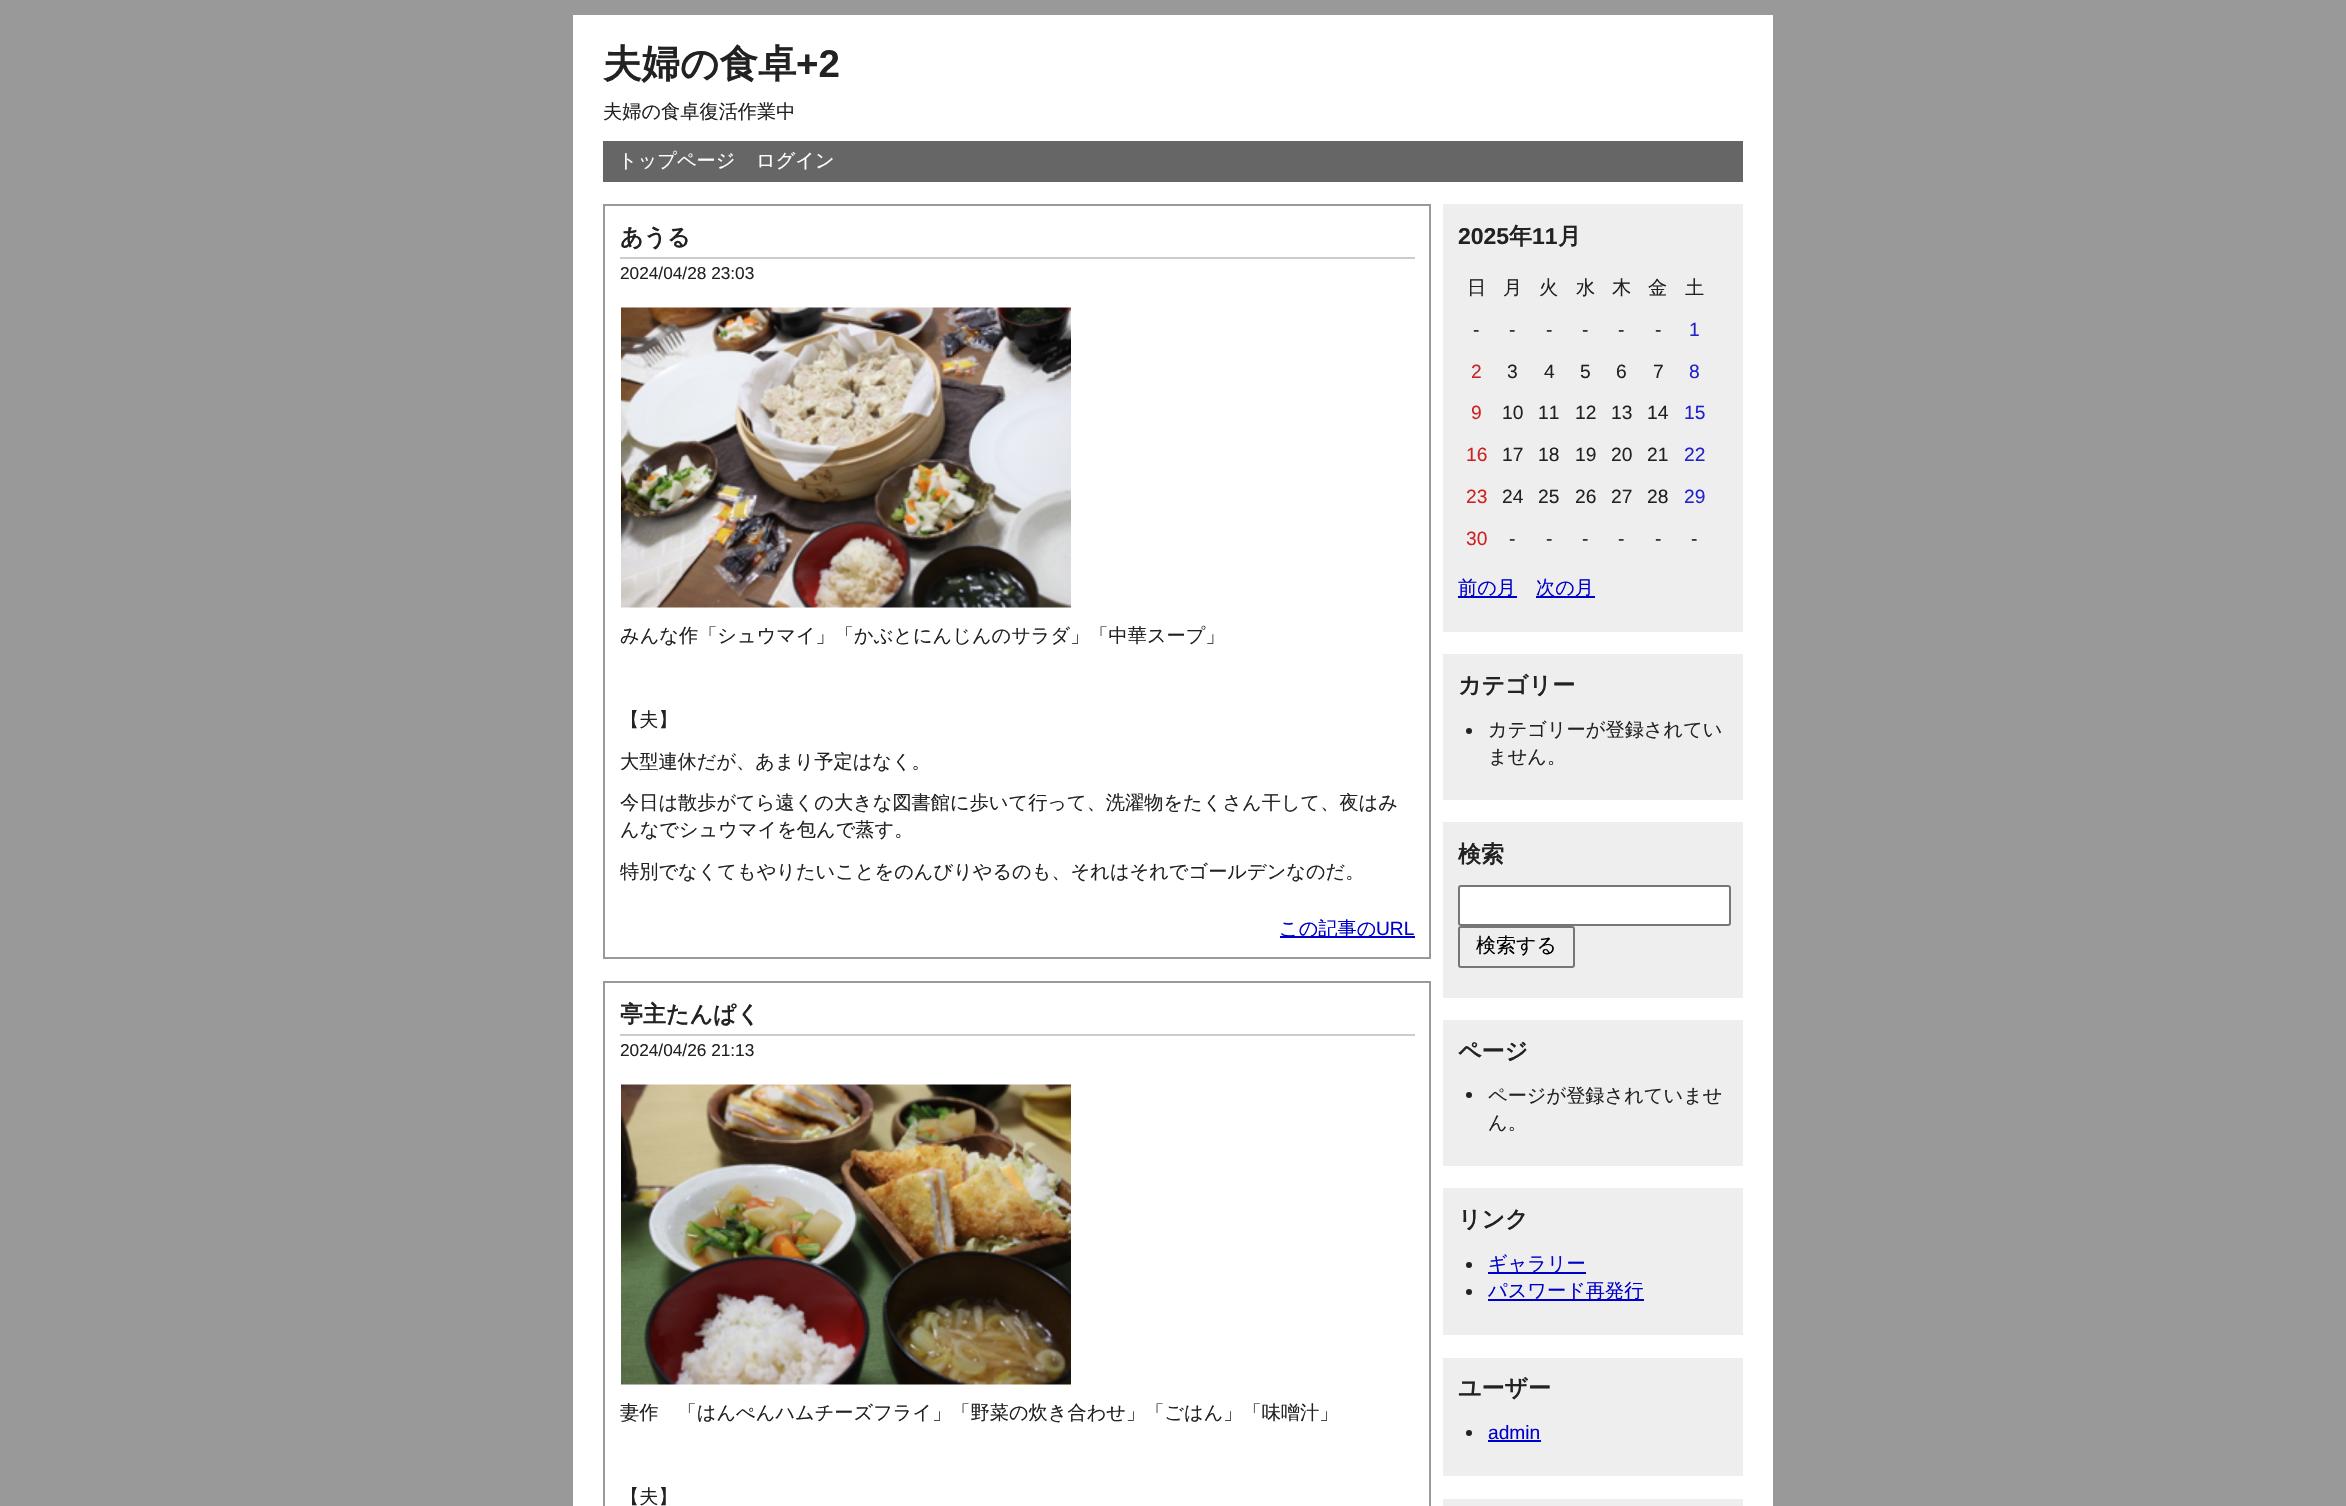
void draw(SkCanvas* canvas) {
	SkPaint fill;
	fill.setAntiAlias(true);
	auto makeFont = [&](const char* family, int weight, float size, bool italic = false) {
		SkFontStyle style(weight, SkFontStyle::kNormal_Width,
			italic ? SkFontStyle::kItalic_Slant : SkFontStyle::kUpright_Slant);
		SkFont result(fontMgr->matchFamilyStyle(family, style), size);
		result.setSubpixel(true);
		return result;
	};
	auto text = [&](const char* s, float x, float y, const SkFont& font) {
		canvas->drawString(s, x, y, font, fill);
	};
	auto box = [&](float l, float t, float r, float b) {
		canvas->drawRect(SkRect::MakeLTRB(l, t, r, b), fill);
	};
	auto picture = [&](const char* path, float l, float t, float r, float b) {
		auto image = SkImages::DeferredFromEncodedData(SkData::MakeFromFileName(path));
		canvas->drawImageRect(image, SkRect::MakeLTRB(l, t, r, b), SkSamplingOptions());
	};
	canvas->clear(0xFF999999);
	fill.setColor(0xFFFFFFFF);
	box(573, 15, 1773, 1506);
	fill.setColor(0xFF666666);
	box(603, 141, 1743, 182);
	fill.setStyle(SkPaint::kStroke_Style);
	fill.setStrokeWidth(2);
	fill.setColor(0xFF999999);
	canvas->drawRect(SkRect::MakeLTRB(604, 205, 1430, 958), fill);
	fill.setStyle(SkPaint::kFill_Style);
	fill.setColor(0xFFCCCCCC);
	box(620, 257, 1415, 259);
	picture("image0.png", 621, 307, 1071, 608);
	fill.setColor(0xFF0000CC);
	box(1280, 936, 1415, 938);
	fill.setStyle(SkPaint::kStroke_Style);
	fill.setColor(0xFF999999);
	canvas->drawRect(SkRect::MakeLTRB(604, 982, 1430, 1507), fill);
	fill.setStyle(SkPaint::kFill_Style);
	fill.setColor(0xFFCCCCCC);
	box(620, 1034, 1415, 1036);
	picture("image1.png", 621, 1084, 1071, 1385);
	fill.setColor(0xFFEEEEEE);
	box(1443, 204, 1743, 632);
	fill.setColor(0xFF0000CC);
	box(1458, 596, 1517, 598);
	box(1536, 596, 1595, 598);
	fill.setColor(0xFFEEEEEE);
	box(1443, 654, 1743, 800);
	fill.setColor(0xFF222222);
	canvas->drawCircle(1469, 731, 3, fill);
	fill.setColor(0xFFEEEEEE);
	box(1443, 822, 1743, 998);
	fill.setColor(0xFFFFFFFF);
	canvas->drawRoundRect(SkRect::MakeLTRB(1459, 886, 1730, 925), 2, 2, fill);
	fill.setStyle(SkPaint::kStroke_Style);
	fill.setColor(0xFF767676);
	canvas->drawRoundRect(SkRect::MakeLTRB(1459, 886, 1730, 925), 2, 2, fill);
	canvas->drawRoundRect(SkRect::MakeLTRB(1459, 927, 1574, 967), 2, 2, fill);
	fill.setStyle(SkPaint::kFill_Style);
	fill.setColor(0xFFEEEEEE);
	box(1443, 1020, 1743, 1166);
	fill.setColor(0xFF222222);
	canvas->drawCircle(1469, 1095, 3, fill);
	fill.setColor(0xFFEEEEEE);
	box(1443, 1188, 1743, 1335);
	fill.setColor(0xFF222222);
	canvas->drawCircle(1469, 1265, 3, fill);
	fill.setColor(0xFF0000CC);
	box(1488, 1272, 1586, 1274);
	fill.setColor(0xFF222222);
	canvas->drawCircle(1469, 1292, 3, fill);
	fill.setColor(0xFF0000CC);
	box(1488, 1299, 1644, 1301);
	fill.setColor(0xFFEEEEEE);
	box(1443, 1358, 1743, 1476);
	fill.setColor(0xFF222222);
	canvas->drawCircle(1469, 1433, 3, fill);
	fill.setColor(0xFF0000CC);
	box(1488, 1440, 1541, 1442);
	fill.setColor(0xFFEEEEEE);
	box(1443, 1499, 1743, 1506);
	auto font1 = makeFont("WenQuanYi Zen Hei", 700, 38.5f);
	fill.setColor(0xFF222222);
	text("夫婦の食卓", 603, 77, font1);
	auto font2 = makeFont("Liberation Sans", 700, 38.5f);
	text("+2", 796, 77, font2);
	auto font3 = makeFont("WenQuanYi Zen Hei", 500, 19.2f);
	text("夫婦の食卓復活作業中", 603, 118, font3);
	fill.setColor(0xFFFFFFFF);
	text("トップページ", 618, 167, font3);
	text("ログイン", 756, 167, font3);
	auto font4 = makeFont("WenQuanYi Zen Hei", 700, 23);
	fill.setColor(0xFF222222);
	text("あうる", 620, 245, font4);
	auto font5 = makeFont("Liberation Sans", 400, 17.25f);
	text("2024/04/28 23:03", 620, 279, font5);
	text("みんな作「シュウマイ」「かぶとにんじんのサラダ」「中華スープ」", 620, 642, font3);
	text("【夫】", 620, 726, font3);
	text("大型連休だが、あまり予定はなく。", 620, 768, font3);
	text("今日は散歩がてら遠くの大きな図書館に歩いて行って、洗濯物をたくさん干して、夜はみ", 620, 809, font3);
	text("んなでシュウマイを包んで蒸す。", 620, 836, font3);
	text("特別でなくてもやりたいことをのんびりやるのも、それはそれでゴールデンなのだ。", 620, 878, font3);
	fill.setColor(0xFF0000CC);
	text("この記事の", 1279, 935, font3);
	auto font6 = makeFont("Liberation Sans", 400, 19.2f);
	text("URL", 1376, 935, font6);
	fill.setColor(0xFF222222);
	text("亭主たんぱく", 620, 1022, font4);
	text("2024/04/26 21:13", 620, 1056, font5);
	text("妻作　「はんぺんハムチーズフライ」「野菜の炊き合わせ」「ごはん」「味噌汁」", 620, 1419, font3);
	text("【夫】", 620, 1503, font3);
	auto font7 = makeFont("Liberation Sans", 700, 23);
	text("2025", 1458, 244, font7);
	text("年", 1509, 244, font4);
	text("11", 1532, 244, font7);
	text("月", 1558, 244, font4);
	text("日", 1467, 294, font3);
	text("月", 1503, 294, font3);
	text("火", 1539, 294, font3);
	text("水", 1576, 294, font3);
	text("木", 1612, 294, font3);
	text("金", 1648, 294, font3);
	text("土", 1685, 294, font3);
	text("-", 1473, 336, font6);
	text("-", 1509, 336, font6);
	text("-", 1546, 336, font6);
	text("-", 1582, 336, font6);
	text("-", 1618, 336, font6);
	text("-", 1655, 336, font6);
	fill.setColor(0xFF2222CC);
	text("1", 1689, 336, font6);
	fill.setColor(0xFFCC2222);
	text("2", 1471, 378, font6);
	fill.setColor(0xFF222222);
	text("3", 1507, 378, font6);
	text("4", 1544, 378, font6);
	text("5", 1580, 378, font6);
	text("6", 1616, 378, font6);
	text("7", 1653, 378, font6);
	fill.setColor(0xFF2222CC);
	text("8", 1689, 378, font6);
	fill.setColor(0xFFCC2222);
	text("9", 1471, 419, font6);
	fill.setColor(0xFF222222);
	text("10", 1502, 419, font6);
	text("11", 1538, 419, font6);
	text("12", 1575, 419, font6);
	text("13", 1611, 419, font6);
	text("14", 1647, 419, font6);
	fill.setColor(0xFF2222CC);
	text("15", 1684, 419, font6);
	fill.setColor(0xFFCC2222);
	text("16", 1466, 461, font6);
	fill.setColor(0xFF222222);
	text("17", 1502, 461, font6);
	text("18", 1538, 461, font6);
	text("19", 1575, 461, font6);
	text("20", 1611, 461, font6);
	text("21", 1647, 461, font6);
	fill.setColor(0xFF2222CC);
	text("22", 1684, 461, font6);
	fill.setColor(0xFFCC2222);
	text("23", 1466, 503, font6);
	fill.setColor(0xFF222222);
	text("24", 1502, 503, font6);
	text("25", 1538, 503, font6);
	text("26", 1575, 503, font6);
	text("27", 1611, 503, font6);
	text("28", 1647, 503, font6);
	fill.setColor(0xFF2222CC);
	text("29", 1684, 503, font6);
	fill.setColor(0xFFCC2222);
	text("30", 1466, 545, font6);
	fill.setColor(0xFF222222);
	text("-", 1509, 545, font6);
	text("-", 1546, 545, font6);
	text("-", 1582, 545, font6);
	text("-", 1618, 545, font6);
	text("-", 1655, 545, font6);
	text("-", 1691, 545, font6);
	fill.setColor(0xFF0000CC);
	text("前の月", 1458, 594, font3);
	text("次の月", 1536, 594, font3);
	fill.setColor(0xFF222222);
	text("カテゴリー", 1458, 693, font4);
	text("カテゴリーが登録されてい", 1488, 736, font3);
	text("ません。", 1488, 763, font3);
	text("検索", 1458, 862, font4);
	auto font8 = makeFont("WenQuanYi Zen Hei", 500, 20);
	fill.setColor(0xFF000000);
	text("検索する", 1476, 952, font8);
	fill.setColor(0xFF222222);
	text("ページ", 1458, 1059, font4);
	text("ページが登録されていませ", 1488, 1102, font3);
	text("ん。", 1488, 1129, font3);
	text("リンク", 1458, 1227, font4);
	fill.setColor(0xFF0000CC);
	text("ギャラリー", 1488, 1270, font3);
	text("パスワード再発行", 1488, 1297, font3);
	fill.setColor(0xFF222222);
	text("ユーザー", 1458, 1396, font4);
	fill.setColor(0xFF0000CC);
	text("admin", 1488, 1439, font6);
}
